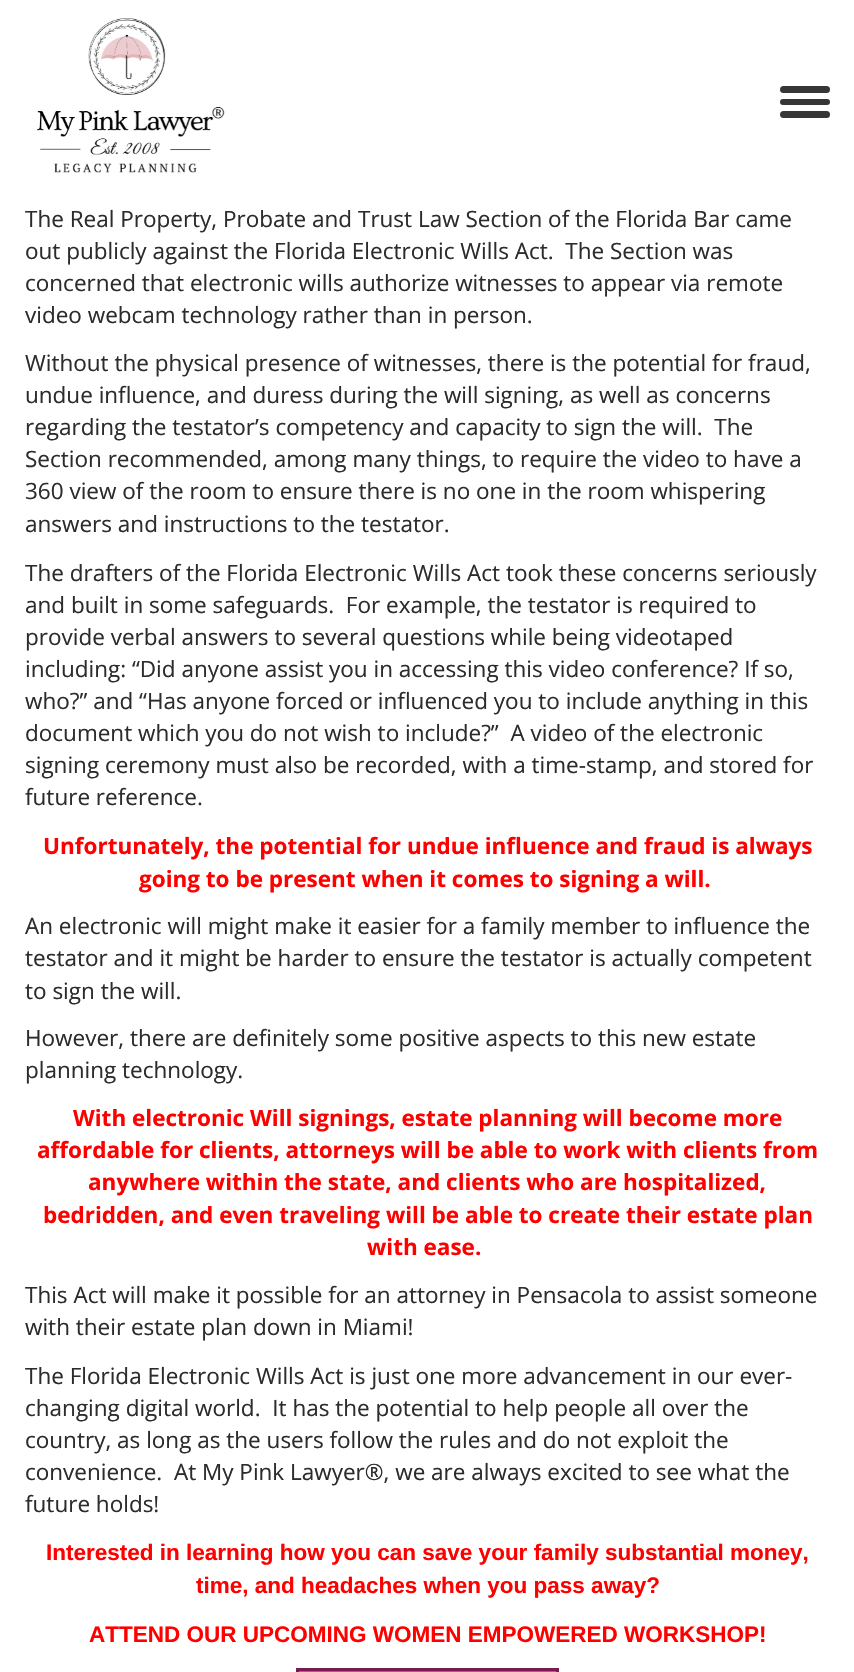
void draw(SkCanvas* canvas) {
	SkPaint fill;
	fill.setAntiAlias(true);
	auto makeFont = [&](const char* family, int weight, float size, bool italic = false) {
		SkFontStyle style(weight, SkFontStyle::kNormal_Width,
			italic ? SkFontStyle::kItalic_Slant : SkFontStyle::kUpright_Slant);
		SkFont result(fontMgr->matchFamilyStyle(family, style), size);
		result.setSubpixel(true);
		return result;
	};
	auto text = [&](const char* s, float x, float y, const SkFont& font) {
		canvas->drawString(s, x, y, font, fill);
	};
	auto roundBox = [&](float l, float t, float r, float b, float radius) {
		canvas->drawRoundRect(SkRect::MakeLTRB(l, t, r, b), radius, radius, fill);
	};
	auto picture = [&](const char* path, float l, float t, float r, float b) {
		auto image = SkImages::DeferredFromEncodedData(SkData::MakeFromFileName(path));
		canvas->drawImageRect(image, SkRect::MakeLTRB(l, t, r, b), SkSamplingOptions());
	};
	canvas->clear(0xFFFFFFFF);
	picture("image0.png", 36, 18, 225, 173);
	fill.setColor(0xFF363636);
	roundBox(780, 86, 830, 93, 3.5f);
	roundBox(780, 99, 830, 105, 3);
	roundBox(780, 111, 830, 118, 3.5f);
	fill.setColor(0xFFED3A9A);
	canvas->drawRect(SkRect::MakeLTRB(297.5f, 1669.5f, 557.5f, 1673.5f), fill);
	fill.setStyle(SkPaint::kStroke_Style);
	fill.setStrokeWidth(3);
	fill.setColor(0xFF761D4D);
	canvas->drawRect(SkRect::MakeLTRB(297.5f, 1669.5f, 557.5f, 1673.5f), fill);
	auto font1 = makeFont("Open Sans", 400, 22.5f);
	fill.setStyle(SkPaint::kFill_Style);
	fill.setColor(0xFF2C2C2C);
	text("The Real Property, Probate and Trust Law Section of the Florida Bar came", 25, 227, font1);
	text("out publicly against the Florida Electronic Wills Act.  The Section was", 25, 259, font1);
	text("concerned that electronic wills authorize witnesses to appear via remote", 25, 291, font1);
	text("video webcam technology rather than in person.", 25, 323, font1);
	text("Without the physical presence of witnesses, there is the potential for fraud,", 25, 371, font1);
	text("undue influence, and duress during the will signing, as well as concerns", 25, 403, font1);
	text("regarding the testator’s competency and capacity to sign the will.  The", 25, 435, font1);
	text("Section recommended, among many things, to require the video to have a", 25, 467, font1);
	text("360 view of the room to ensure there is no one in the room whispering", 25, 499, font1);
	text("answers and instructions to the testator.", 25, 532, font1);
	text("The drafters of the Florida Electronic Wills Act took these concerns seriously", 25, 581, font1);
	text("and built in some safeguards.  For example, the testator is required to", 25, 613, font1);
	text("provide verbal answers to several questions while being videotaped", 25, 645, font1);
	text("including: “Did anyone assist you in accessing this video conference? If so,", 25, 677, font1);
	text("who?” and “Has anyone forced or influenced you to include anything in this", 25, 709, font1);
	text("document which you do not wish to include?”  A video of the electronic", 25, 741, font1);
	text("signing ceremony must also be recorded, with a time-stamp, and stored for", 25, 773, font1);
	text("future reference.", 25, 805, font1);
	auto font2 = makeFont("Open Sans", 700, 22.5f);
	fill.setColor(0xFFFF0000);
	text("Unfortunately, the potential for undue influence and fraud is always", 43, 854, font2);
	text("going to be present when it comes to signing a will.", 139, 887, font2);
	fill.setColor(0xFF2C2C2C);
	text("An electronic will might make it easier for a family member to influence the", 25, 934, font1);
	text("testator and it might be harder to ensure the testator is actually competent", 25, 966, font1);
	text("to sign the will.", 25, 999, font1);
	text("However, there are definitely some positive aspects to this new estate", 25, 1046, font1);
	text("planning technology.", 25, 1078, font1);
	fill.setColor(0xFFFF0000);
	text("With electronic Will signings, estate planning will become more", 73, 1126, font2);
	text("affordable for clients, attorneys will be able to work with clients from", 37, 1158, font2);
	text("anywhere within the state, and clients who are hospitalized,", 88, 1190, font2);
	text("bedridden, and even traveling will be able to create their estate plan", 43, 1223, font2);
	text("with ease.", 367, 1255, font2);
	fill.setColor(0xFF2C2C2C);
	text("This Act will make it possible for an attorney in Pensacola to assist someone", 25, 1303, font1);
	text("with their estate plan down in Miami!", 25, 1335, font1);
	text("The Florida Electronic Wills Act is just one more advancement in our ever-", 25, 1384, font1);
	text("changing digital world.  It has the potential to help people all over the", 25, 1416, font1);
	text("country, as long as the users follow the rules and do not exploit the", 25, 1448, font1);
	text("convenience.  At My Pink Lawyer®, we are always excited to see what the", 25, 1480, font1);
	text("future holds!", 25, 1512, font1);
	auto font3 = makeFont("Liberation Sans", 700, 22.5f);
	fill.setColor(0xFFFF0000);
	text("Interested in learning how you can save your family substantial money,", 46, 1560, font3);
	text("time, and headaches when you pass away?", 196, 1593, font3);
	text("ATTEND OUR UPCOMING WOMEN EMPOWERED WORKSHOP!", 89, 1642, font3);
}
